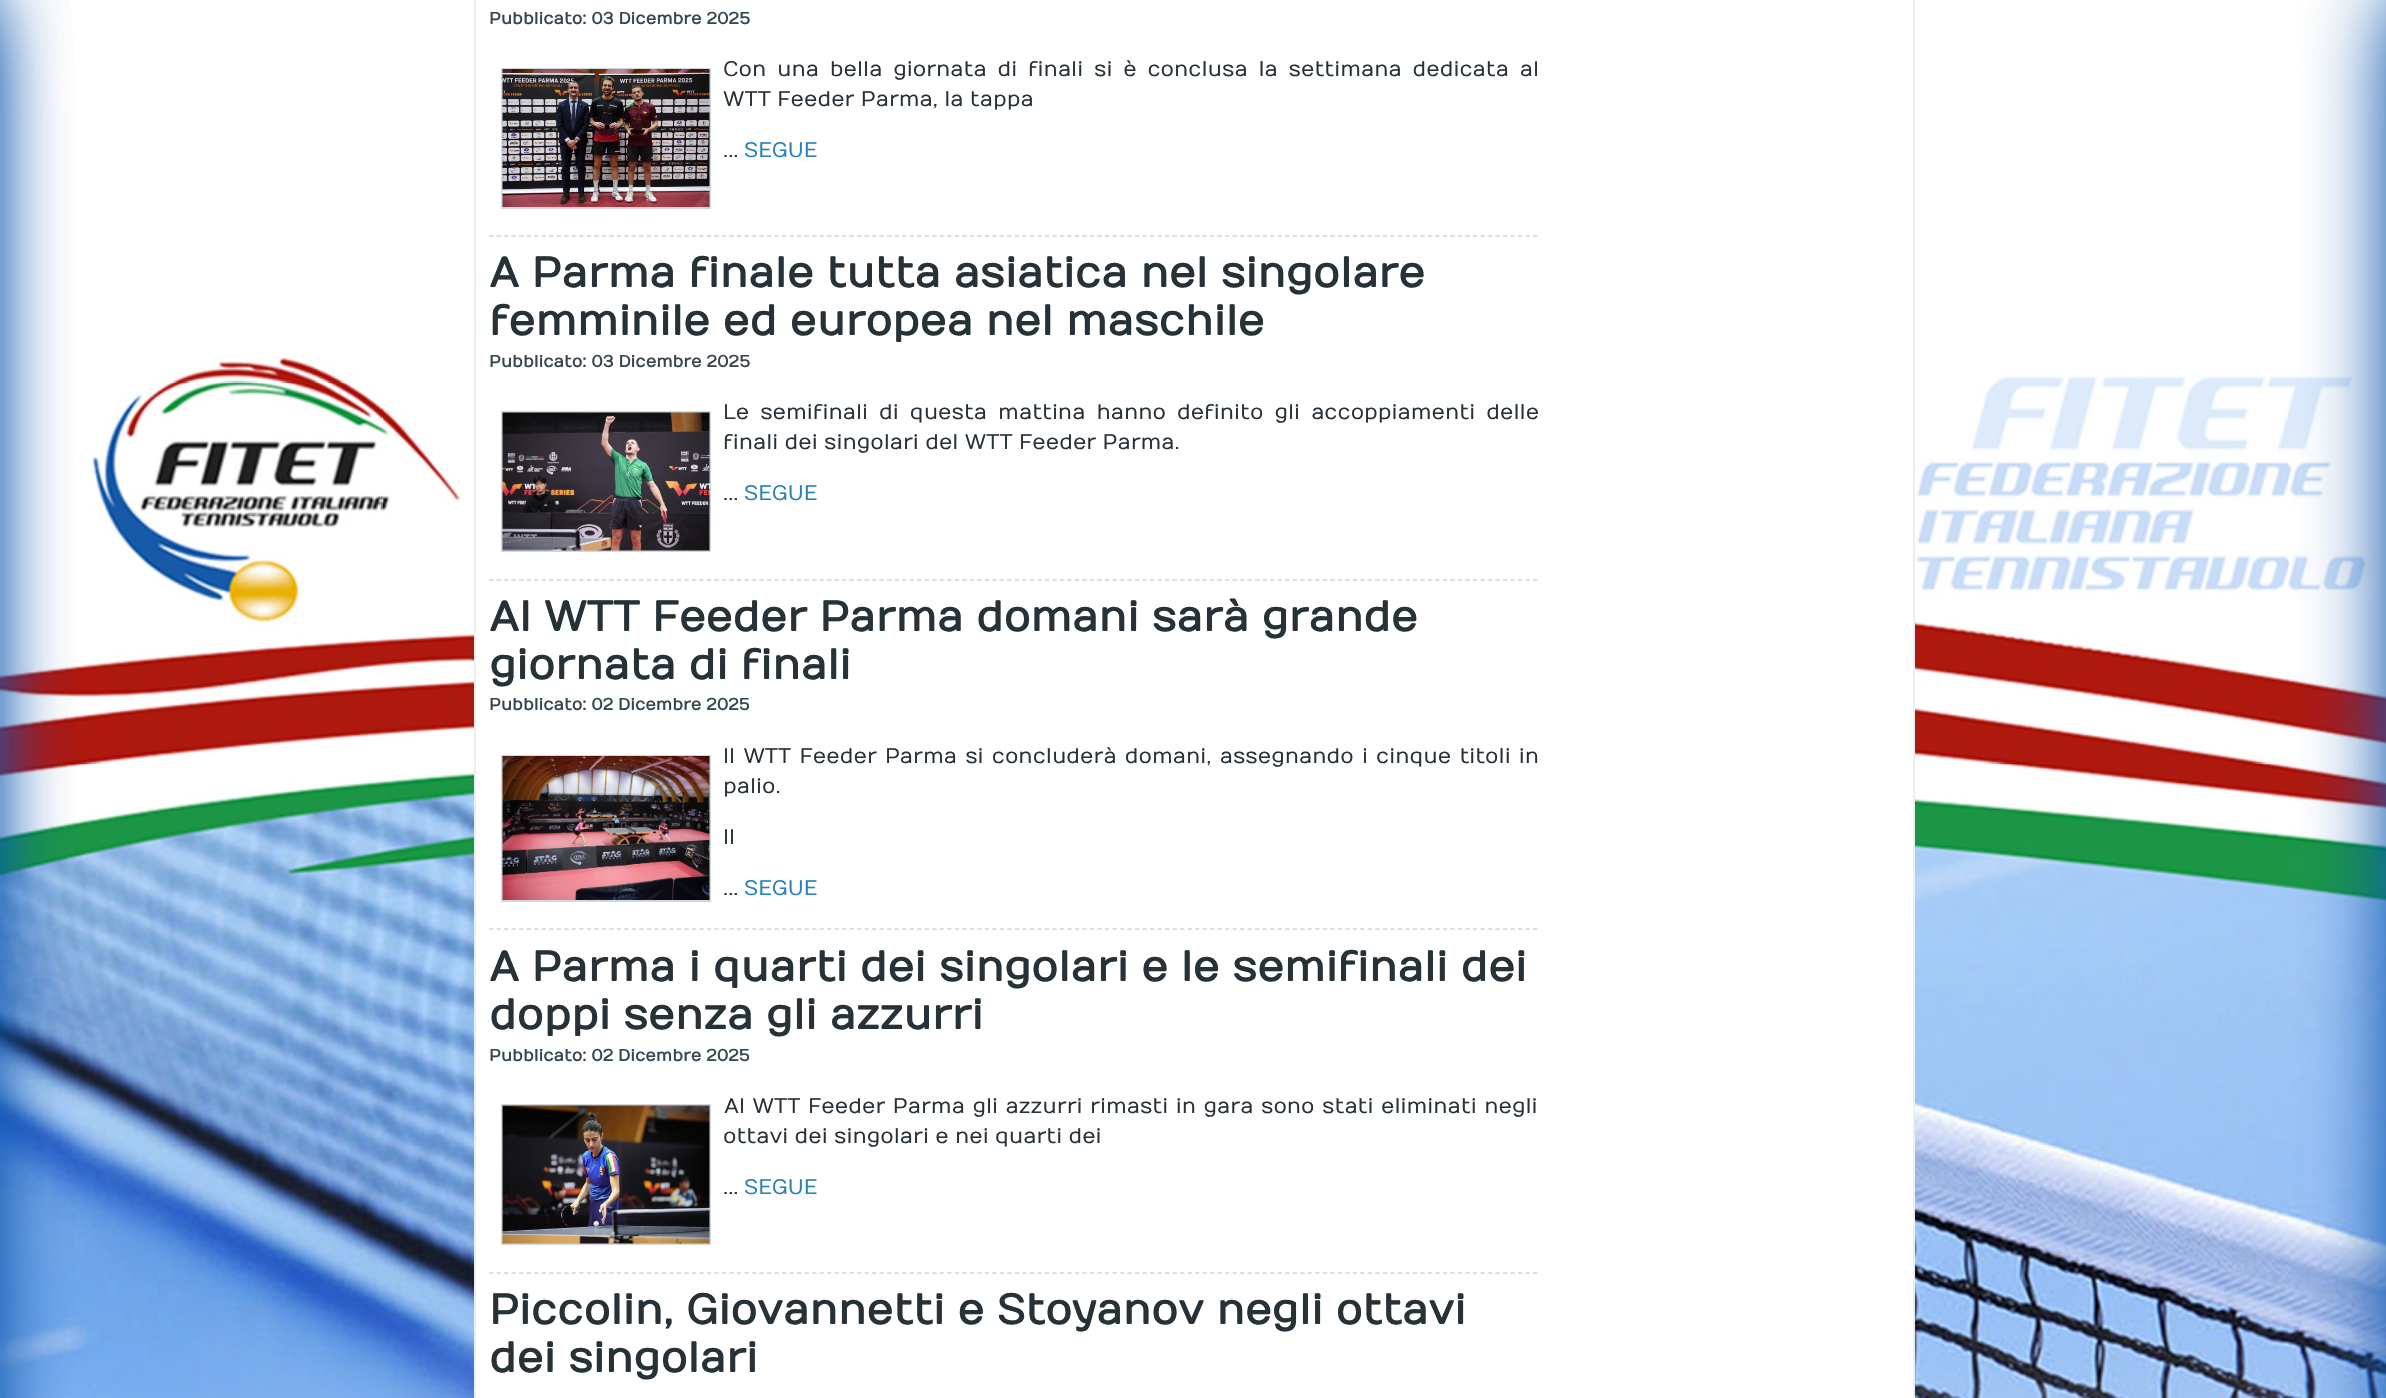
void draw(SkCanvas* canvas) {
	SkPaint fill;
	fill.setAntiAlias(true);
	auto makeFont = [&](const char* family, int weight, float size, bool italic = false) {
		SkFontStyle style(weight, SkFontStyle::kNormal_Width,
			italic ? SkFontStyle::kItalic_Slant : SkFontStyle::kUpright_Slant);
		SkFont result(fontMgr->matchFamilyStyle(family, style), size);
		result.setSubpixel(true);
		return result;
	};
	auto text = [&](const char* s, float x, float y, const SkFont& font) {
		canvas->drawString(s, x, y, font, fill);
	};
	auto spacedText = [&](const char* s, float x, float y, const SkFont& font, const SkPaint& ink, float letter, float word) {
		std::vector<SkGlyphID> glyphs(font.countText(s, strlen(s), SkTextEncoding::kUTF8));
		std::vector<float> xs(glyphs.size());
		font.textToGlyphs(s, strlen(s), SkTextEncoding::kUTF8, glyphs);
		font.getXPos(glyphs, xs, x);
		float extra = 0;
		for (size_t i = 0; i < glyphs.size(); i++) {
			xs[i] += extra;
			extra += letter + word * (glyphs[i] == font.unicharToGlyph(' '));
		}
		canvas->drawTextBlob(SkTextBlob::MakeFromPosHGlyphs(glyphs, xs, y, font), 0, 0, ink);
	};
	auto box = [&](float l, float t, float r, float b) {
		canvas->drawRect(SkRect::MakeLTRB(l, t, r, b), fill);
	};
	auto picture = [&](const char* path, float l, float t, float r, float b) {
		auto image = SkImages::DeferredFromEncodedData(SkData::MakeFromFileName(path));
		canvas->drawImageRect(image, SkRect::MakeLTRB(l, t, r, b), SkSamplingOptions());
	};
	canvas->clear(0xFFFFFFFF);
	picture("image0.png", 0, 0, 2386, 1398);
	fill.setColor(0xFFFFFFFF);
	box(476, 551, 1913, 1398);
	fill.setColor(0xFFECEFF1);
	box(1913, 0, 1915, 1398);
	box(474, 0, 476, 1398);
	fill.setStyle(SkPaint::kStroke_Style);
	fill.setStrokeWidth(1.5f);
	fill.setColor(0xFFCFD8DC);
	fill.setPathEffect(SkDashPathEffect::Make({{4.5f, 3.01f}}, 0));
	canvas->drawPath(SkPathBuilder().moveTo(489, 236).lineTo(1539, 236).detach(), fill);
	fill.setPathEffect(nullptr);
	fill.setStrokeWidth(2);
	canvas->drawRect(SkRect::MakeLTRB(502, 69, 710, 208), fill);
	picture("image1.png", 502, 69, 710, 207);
	fill.setStrokeWidth(1.5f);
	fill.setPathEffect(SkDashPathEffect::Make({{4.5f, 3.01f}}, 0));
	canvas->drawPath(SkPathBuilder().moveTo(489, 580).lineTo(1539, 580).detach(), fill);
	fill.setPathEffect(nullptr);
	fill.setStrokeWidth(2);
	canvas->drawRect(SkRect::MakeLTRB(502, 412, 710, 551), fill);
	picture("image2.png", 502, 412, 710, 551);
	fill.setStrokeWidth(1.5f);
	fill.setPathEffect(SkDashPathEffect::Make({{4.5f, 3.01f}}, 0));
	canvas->drawPath(SkPathBuilder().moveTo(489, 929).lineTo(1539, 929).detach(), fill);
	fill.setPathEffect(nullptr);
	fill.setStrokeWidth(2);
	canvas->drawRect(SkRect::MakeLTRB(502, 756, 710, 901), fill);
	picture("image3.png", 502, 756, 710, 900);
	fill.setStrokeWidth(1.5f);
	fill.setPathEffect(SkDashPathEffect::Make({{4.5f, 3.01f}}, 0));
	canvas->drawPath(SkPathBuilder().moveTo(489, 1273).lineTo(1539, 1273).detach(), fill);
	fill.setPathEffect(nullptr);
	fill.setStrokeWidth(2);
	canvas->drawRect(SkRect::MakeLTRB(502, 1105, 710, 1244), fill);
	picture("image4.png", 502, 1105, 710, 1244);
	auto font1 = makeFont("Numans", 700, 16.5f);
	fill.setStyle(SkPaint::kFill_Style);
	fill.setColor(0xFF37474F);
	text("Pubblicato: 03 Dicembre 2025", 489, 24, font1);
	auto font2 = makeFont("Numans", 400, 21);
	fill.setColor(0xFF263238);
	spacedText("Con una bella giornata di finali si è conclusa la settimana dedicata al", 723, 76, font2, fill, 0, 4.5f);
	text("WTT Feeder Parma, la tappa", 723, 106, font2);
	text("...", 723, 157, font2);
	fill.setColor(0xFF2980B9);
	text("SEGUE", 744, 157, font2);
	auto font3 = makeFont("Numans", 700, 42);
	fill.setColor(0xFF263238);
	text("A Parma finale tutta asiatica nel singolare", 489, 287, font3);
	text("femminile ed europea nel maschile", 489, 335, font3);
	fill.setColor(0xFF37474F);
	text("Pubblicato: 03 Dicembre 2025", 489, 367, font1);
	fill.setColor(0xFF263238);
	spacedText("Le semifinali di questa mattina hanno definito gli accoppiamenti delle", 723, 419, font2, fill, 0, 4.75f);
	text("finali dei singolari del WTT Feeder Parma.", 723, 449, font2);
	text("...", 723, 500, font2);
	fill.setColor(0xFF2980B9);
	text("SEGUE", 744, 500, font2);
	fill.setColor(0xFF263238);
	text("Al WTT Feeder Parma domani sarà grande", 489, 631, font3);
	text("giornata di finali", 489, 679, font3);
	fill.setColor(0xFF37474F);
	text("Pubblicato: 02 Dicembre 2025", 489, 710, font1);
	fill.setColor(0xFF263238);
	spacedText("Il WTT Feeder Parma si concluderà domani, assegnando i cinque titoli in", 723, 763, font2, fill, 0, 1.9f);
	text("palio.", 723, 793, font2);
	text("Il", 723, 844, font2);
	text("...", 723, 895, font2);
	fill.setColor(0xFF2980B9);
	text("SEGUE", 744, 895, font2);
	fill.setColor(0xFF263238);
	text("A Parma i quarti dei singolari e le semifinali dei", 489, 981, font3);
	text("doppi senza gli azzurri", 489, 1029, font3);
	fill.setColor(0xFF37474F);
	text("Pubblicato: 02 Dicembre 2025", 489, 1061, font1);
	fill.setColor(0xFF263238);
	spacedText("Al WTT Feeder Parma gli azzurri rimasti in gara sono stati eliminati negli", 724, 1113, font2, fill, 0, 1.25f);
	text("ottavi dei singolari e nei quarti dei", 723, 1143, font2);
	text("...", 723, 1194, font2);
	fill.setColor(0xFF2980B9);
	text("SEGUE", 744, 1194, font2);
	fill.setColor(0xFF263238);
	text("Piccolin, Giovannetti e Stoyanov negli ottavi", 489, 1324, font3);
	text("dei singolari", 489, 1372, font3);
}
